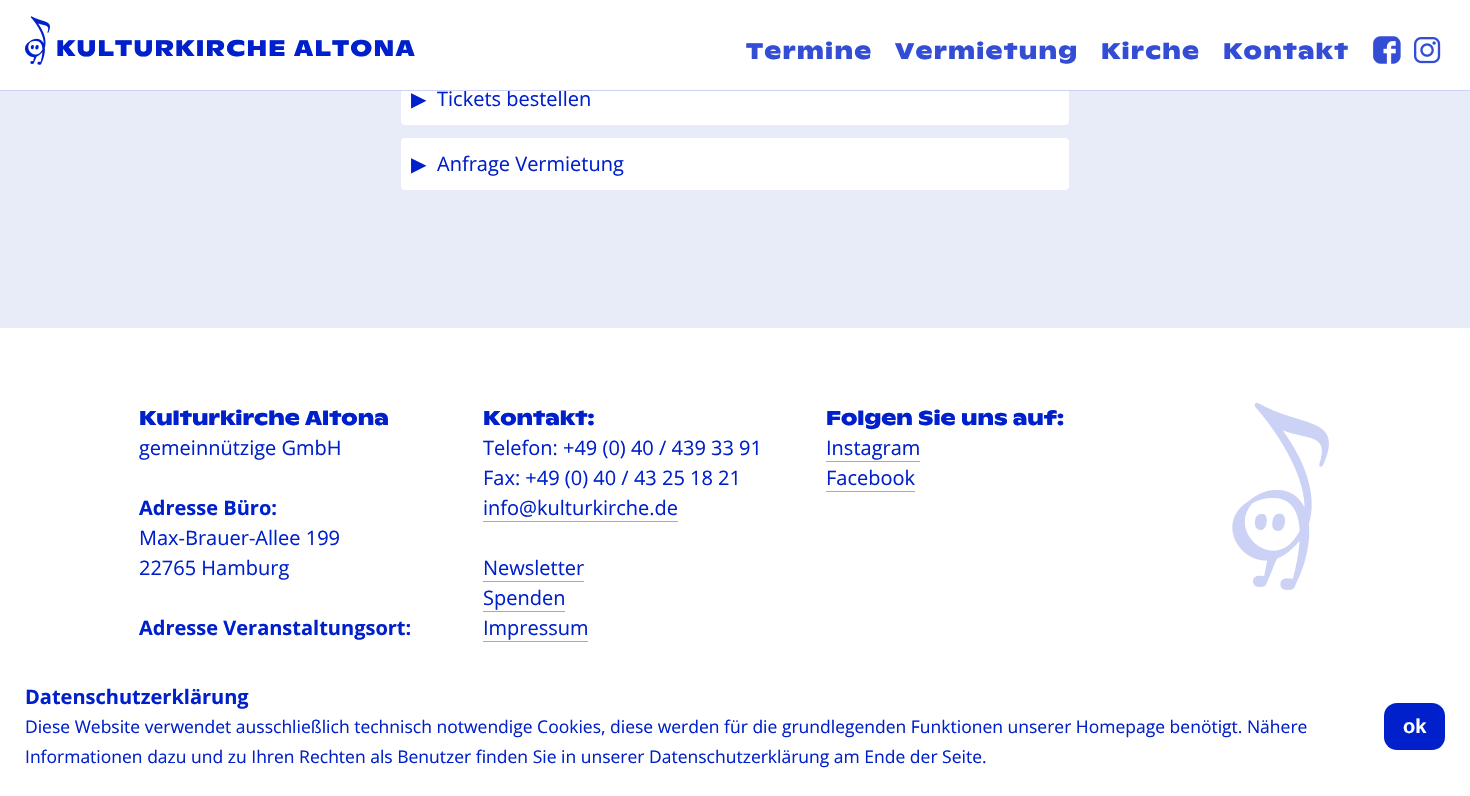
void draw(SkCanvas* canvas) {
	SkPaint fill;
	fill.setAntiAlias(true);
	auto makeFont = [&](const char* family, int weight, float size, bool italic = false) {
		SkFontStyle style(weight, SkFontStyle::kNormal_Width,
			italic ? SkFontStyle::kItalic_Slant : SkFontStyle::kUpright_Slant);
		SkFont result(fontMgr->matchFamilyStyle(family, style), size);
		result.setSubpixel(true);
		return result;
	};
	auto text = [&](const char* s, float x, float y, const SkFont& font) {
		canvas->drawString(s, x, y, font, fill);
	};
	auto spacedText = [&](const char* s, float x, float y, const SkFont& font, const SkPaint& ink, float letter, float word) {
		std::vector<SkGlyphID> glyphs(font.countText(s, strlen(s), SkTextEncoding::kUTF8));
		std::vector<float> xs(glyphs.size());
		font.textToGlyphs(s, strlen(s), SkTextEncoding::kUTF8, glyphs);
		font.getXPos(glyphs, xs, x);
		float extra = 0;
		for (size_t i = 0; i < glyphs.size(); i++) {
			xs[i] += extra;
			extra += letter + word * (glyphs[i] == font.unicharToGlyph(' '));
		}
		canvas->drawTextBlob(SkTextBlob::MakeFromPosHGlyphs(glyphs, xs, y, font), 0, 0, ink);
	};
	auto box = [&](float l, float t, float r, float b) {
		canvas->drawRect(SkRect::MakeLTRB(l, t, r, b), fill);
	};
	auto roundBox = [&](float l, float t, float r, float b, float radius) {
		canvas->drawRoundRect(SkRect::MakeLTRB(l, t, r, b), radius, radius, fill);
	};
	auto picture = [&](const char* path, float l, float t, float r, float b) {
		auto image = SkImages::DeferredFromEncodedData(SkData::MakeFromFileName(path));
		canvas->drawImageRect(image, SkRect::MakeLTRB(l, t, r, b), SkSamplingOptions());
	};
	canvas->clear(0xFFE8ECF9);
	fill.setColor(0xFFFFFFFF);
	roundBox(401, 8, 1069, 60, 4);
	roundBox(401, 73, 1069, 125, 4);
	fill.setColor(0xFAFFFFFF);
	box(0, 0, 1470, 90);
	picture("image0.png", 25, 16, 50, 65);
	picture("image1.png", 1373, 36, 1401, 64);
	picture("image2.png", 1414, 37, 1441, 64);
	fill.setColor(0xFFFFFFFF);
	roundBox(401, 138, 1069, 190, 4);
	box(0, 328, 1470, 796);
	fill.setColor(0xFF99A6EA);
	box(483, 521, 678, 522);
	box(483, 581, 584, 582);
	box(483, 611, 565, 612);
	box(483, 641, 588, 642);
	box(826, 461, 920, 462);
	box(826, 491, 915, 492);
	picture("image3.png", 1232, 403, 1329, 590);
	fill.setColor(0xFF0020CB);
	roundBox(1384, 703, 1445, 750, 13);
	auto font1 = makeFont("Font", 700, 22.5f);
	spacedText("KULTURKIRCHE ALTONA", 56, 56, font1, fill, 1.25f, 0);
	fill.setColor(0xFF334DD5);
	spacedText("Termine", 746, 59, font1, fill, 1.25f, 0);
	spacedText("Vermietung", 895, 59, font1, fill, 1.25f, 0);
	spacedText("Kirche", 1101, 59, font1, fill, 1.25f, 0);
	spacedText("Kontakt", 1223, 59, font1, fill, 1.25f, 0);
	auto font2 = makeFont("DejaVu Sans", 400, 20);
	fill.setColor(0xFF0020CB);
	text("▶", 411, 106, font2);
	auto font3 = makeFont("Open Sans", 400, 20);
	text("Tickets bestellen", 437, 106, font3);
	fill.setColor(0xFFCCD2F5);
	box(0, 90, 1470, 91);
	fill.setColor(0xFF0020CB);
	text("▶", 411, 171, font2);
	text("Anfrage Vermietung", 437, 171, font3);
	auto font4 = makeFont("Font", 700, 20);
	text("Kulturkirche Altona", 139, 425, font4);
	text("gemeinnützige GmbH", 139, 455, font3);
	auto font5 = makeFont("Open Sans", 700, 20);
	text("Adresse Büro:", 139, 515, font5);
	text("Max-Brauer-Allee 199", 139, 545, font3);
	text("22765 Hamburg", 139, 575, font3);
	text("Adresse Veranstaltungsort:", 139, 635, font5);
	text("Kontakt:", 483, 425, font4);
	text("Telefon: +49 (0) 40 / 439 33 91", 483, 455, font3);
	text("Fax: +49 (0) 40 / 43 25 18 21", 483, 485, font3);
	text("info@kulturkirche.de", 483, 515, font3);
	text("Newsletter", 483, 575, font3);
	text("Spenden", 483, 605, font3);
	text("Impressum", 483, 635, font3);
	text("Folgen Sie uns auf:", 826, 425, font4);
	text("Instagram", 826, 455, font3);
	text("Facebook", 826, 485, font3);
	text("Datenschutzerklärung", 25, 704, font5);
	auto font6 = makeFont("Open Sans", 400, 17.5f);
	text("Diese Website verwendet ausschließlich technisch notwendige Cookies, diese werden für die grundlegenden Funktionen unserer Homepage benötigt. Nähere", 25, 733, font6);
	text("Informationen dazu und zu Ihren Rechten als Benutzer finden Sie in unserer Datenschutzerklärung am Ende der Seite.", 25, 763, font6);
	auto font7 = makeFont("Liberation Sans", 700, 20);
	fill.setColor(0xFFFFFFFF);
	text("ok", 1403, 733, font7);
}
